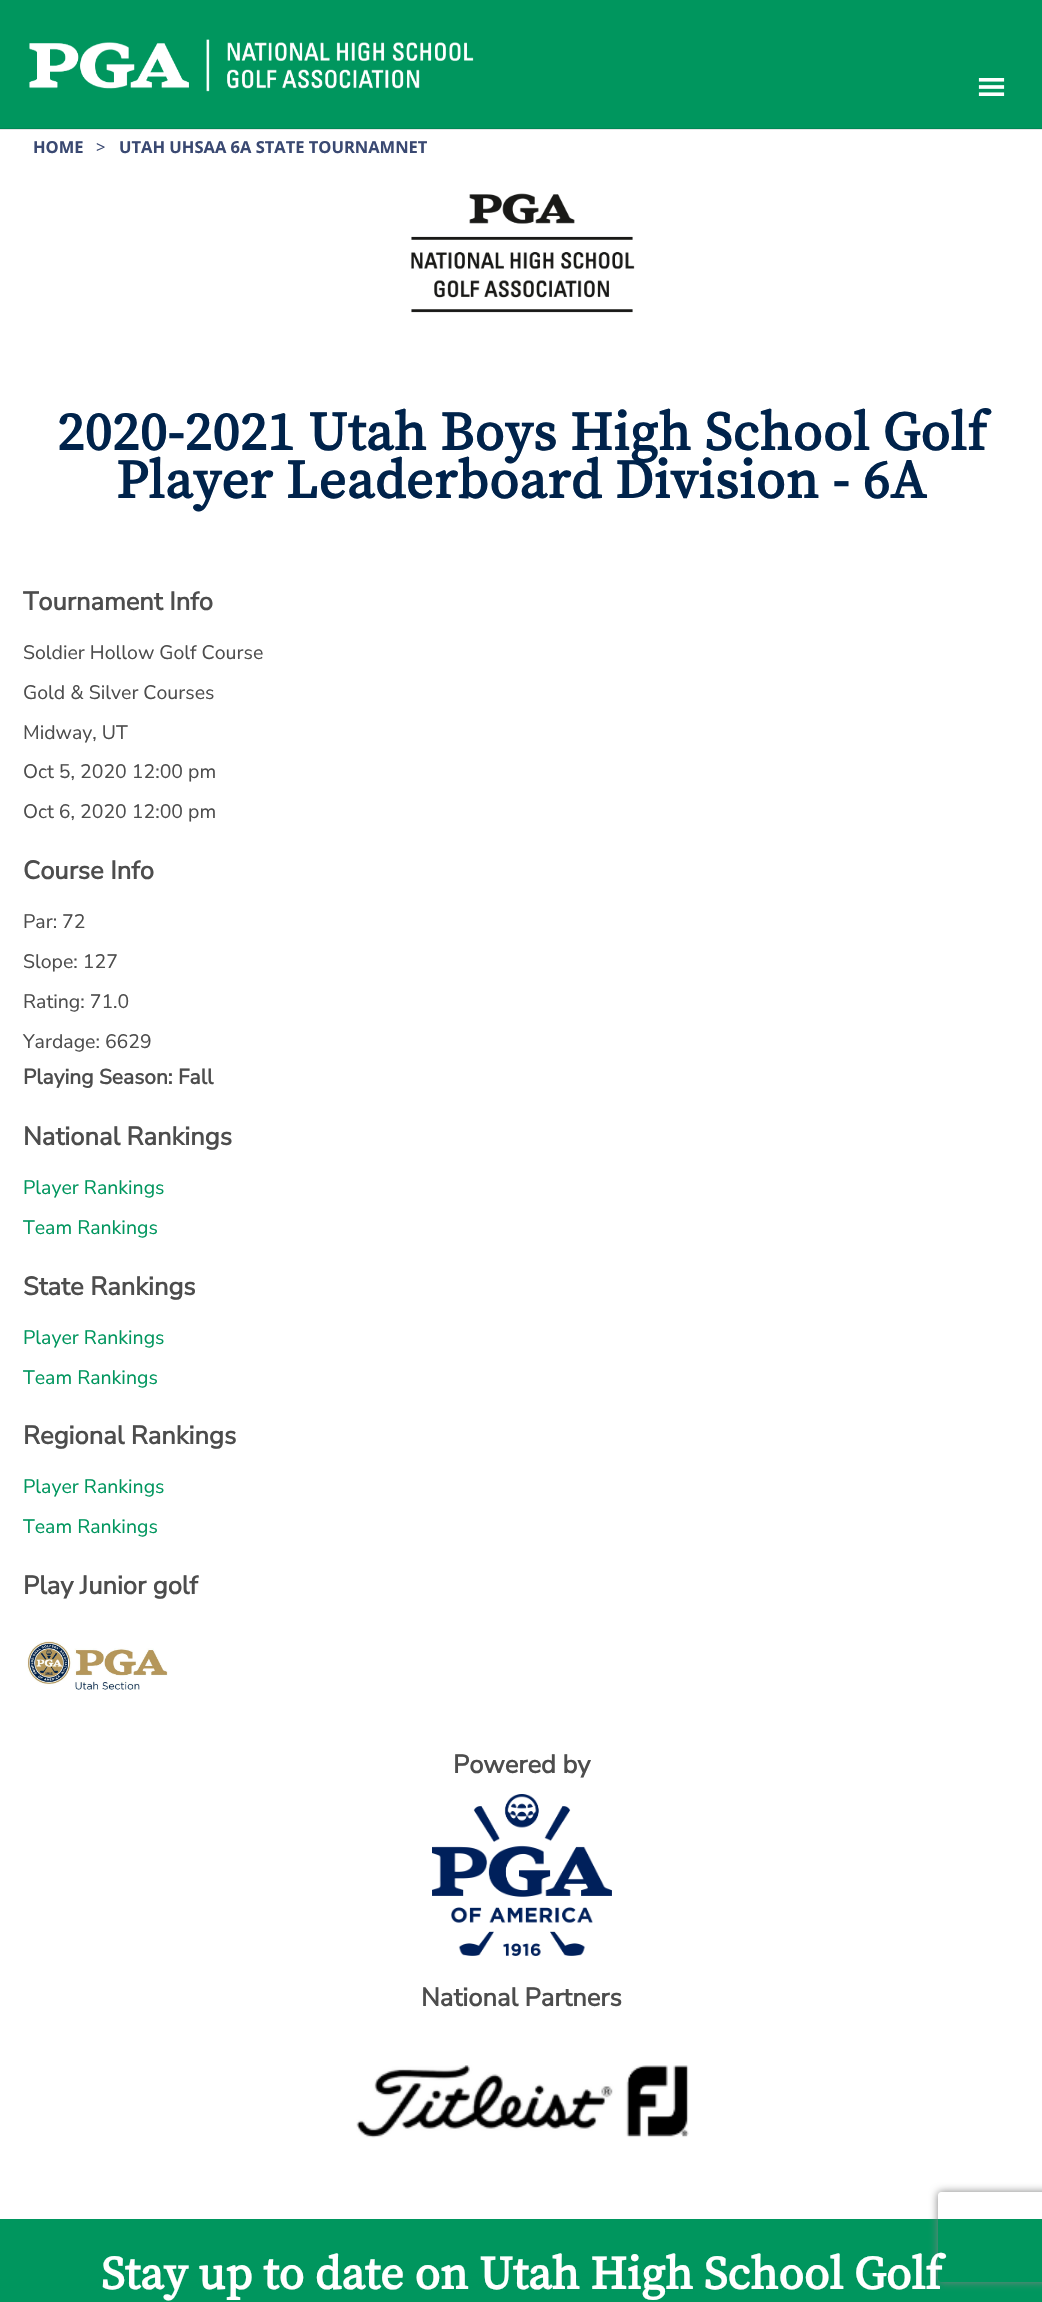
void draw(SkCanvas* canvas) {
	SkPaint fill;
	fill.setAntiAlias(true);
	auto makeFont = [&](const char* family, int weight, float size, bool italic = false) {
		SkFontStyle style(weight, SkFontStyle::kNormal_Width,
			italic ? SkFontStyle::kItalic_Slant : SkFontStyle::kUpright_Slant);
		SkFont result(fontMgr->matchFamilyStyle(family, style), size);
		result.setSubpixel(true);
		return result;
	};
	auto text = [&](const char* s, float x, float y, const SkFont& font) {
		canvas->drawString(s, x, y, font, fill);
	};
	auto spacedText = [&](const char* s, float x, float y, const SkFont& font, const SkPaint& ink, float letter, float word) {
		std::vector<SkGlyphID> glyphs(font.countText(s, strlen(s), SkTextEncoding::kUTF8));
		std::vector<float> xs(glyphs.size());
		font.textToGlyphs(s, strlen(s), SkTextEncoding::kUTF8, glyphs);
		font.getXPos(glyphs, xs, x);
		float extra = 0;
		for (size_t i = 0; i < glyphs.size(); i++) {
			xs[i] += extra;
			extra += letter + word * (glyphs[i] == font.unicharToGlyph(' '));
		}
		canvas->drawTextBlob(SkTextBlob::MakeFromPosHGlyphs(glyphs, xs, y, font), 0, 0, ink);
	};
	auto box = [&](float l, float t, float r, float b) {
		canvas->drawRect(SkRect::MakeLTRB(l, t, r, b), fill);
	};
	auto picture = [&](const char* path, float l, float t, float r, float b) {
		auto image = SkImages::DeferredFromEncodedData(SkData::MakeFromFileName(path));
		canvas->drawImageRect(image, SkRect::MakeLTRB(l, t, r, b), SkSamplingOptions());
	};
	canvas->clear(0xFFFFFFFF);
	fill.setColor(0xFFE6E6E6);
	box(0, 129, 1042, 130);
	fill.setColor(0xFF00965E);
	box(0, 0, 1042, 128);
	fill.setColor(0xFF008755);
	box(0, 128, 1042, 129);
	picture("image0.png", 29, 39, 474, 92);
	picture("image1.png", 978, 78, 1005, 96);
	picture("image2.png", 411, 193, 635, 313);
	picture("image3.png", 27, 1641, 168, 1690);
	picture("image4.png", 432, 1794, 612, 1956);
	picture("image5.png", 356, 2065, 689, 2138);
	fill.setColor(0xFF00965E);
	box(0, 2219, 1042, 2302);
	canvas->save();
	canvas->clipPath(SkPathBuilder(SkPathFillType::kEvenOdd).moveTo(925, 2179).lineTo(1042, 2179).lineTo(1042, 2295).lineTo(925, 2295).close().moveTo(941, 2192).lineTo(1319, 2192).cubicTo(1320.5f, 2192, 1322, 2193.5f, 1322, 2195).lineTo(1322, 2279).cubicTo(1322, 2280.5f, 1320.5f, 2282, 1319, 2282).lineTo(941, 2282).cubicTo(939.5f, 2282, 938, 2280.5f, 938, 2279).lineTo(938, 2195).cubicTo(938, 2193.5f, 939.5f, 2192, 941, 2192).close().detach(), true);
	fill.setColor(0xFF808080);
	fill.setMaskFilter(SkMaskFilter::MakeBlur(kNormal_SkBlurStyle, 4));
	canvas->drawRoundRect(SkRect::MakeLTRB(938, 2192, 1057, 2282), 3, 3, fill);
	fill.setMaskFilter(nullptr);
	canvas->restore();
	auto font1 = makeFont("Open Sans", 700, 16.5f);
	fill.setColor(0xFF3A4972);
	text("HOME", 33, 153, font1);
	auto font2 = makeFont("Open Sans", 400, 16.5f);
	text(">", 96, 153, font2);
	text("UTAH UHSAA 6A STATE TOURNAMNET", 119, 153, font1);
	auto font3 = makeFont("Source Serif Pro", 700, 54);
	fill.setColor(0xFF00234B);
	spacedText("2020-2021 Utah Boys High School Golf", 57, 450, font3, fill, 0.55f, 0);
	spacedText("Player Leaderboard Division - 6A", 116, 498, font3, fill, 0.55f, 0);
	auto font4 = makeFont("Nunito Sans", 700, 25.5f);
	fill.setColor(0xFF4D4D4D);
	text("Tournament Info", 23, 610, font4);
	auto font5 = makeFont("Nunito Sans", 400, 19.5f);
	text("Soldier Hollow Golf Course", 23, 659, font5);
	text("Gold & Silver Courses", 23, 699, font5);
	text("Midway, UT", 23, 739, font5);
	text("Oct 5, 2020 12:00 pm", 23, 778, font5);
	text("Oct 6, 2020 12:00 pm", 23, 818, font5);
	text("Course Info", 23, 879, font4);
	text("Par: 72", 23, 928, font5);
	text("Slope: 127", 23, 968, font5);
	text("Rating: 71.0", 23, 1008, font5);
	text("Yardage: 6629", 23, 1048, font5);
	auto font6 = makeFont("Nunito Sans", 700, 21);
	text("Playing Season: Fall", 23, 1084, font6);
	text("National Rankings", 23, 1145, font4);
	fill.setColor(0xFF00965E);
	text("Player Rankings", 23, 1194, font5);
	text("Team Rankings", 23, 1234, font5);
	fill.setColor(0xFF4D4D4D);
	text("State Rankings", 23, 1295, font4);
	fill.setColor(0xFF00965E);
	text("Player Rankings", 23, 1344, font5);
	text("Team Rankings", 23, 1384, font5);
	fill.setColor(0xFF4D4D4D);
	text("Regional Rankings", 23, 1444, font4);
	fill.setColor(0xFF00965E);
	text("Player Rankings", 23, 1493, font5);
	text("Team Rankings", 23, 1533, font5);
	fill.setColor(0xFF4D4D4D);
	text("Play Junior golf", 23, 1594, font4);
	text("Powered by", 453, 1773, font4);
	text("National Partners", 421, 2006, font4);
	auto font7 = makeFont("Source Serif Pro", 700, 46.5f);
	fill.setColor(0xFFFFFFFF);
	text("Stay up to date on Utah High School Golf", 101, 2289, font7);
}
